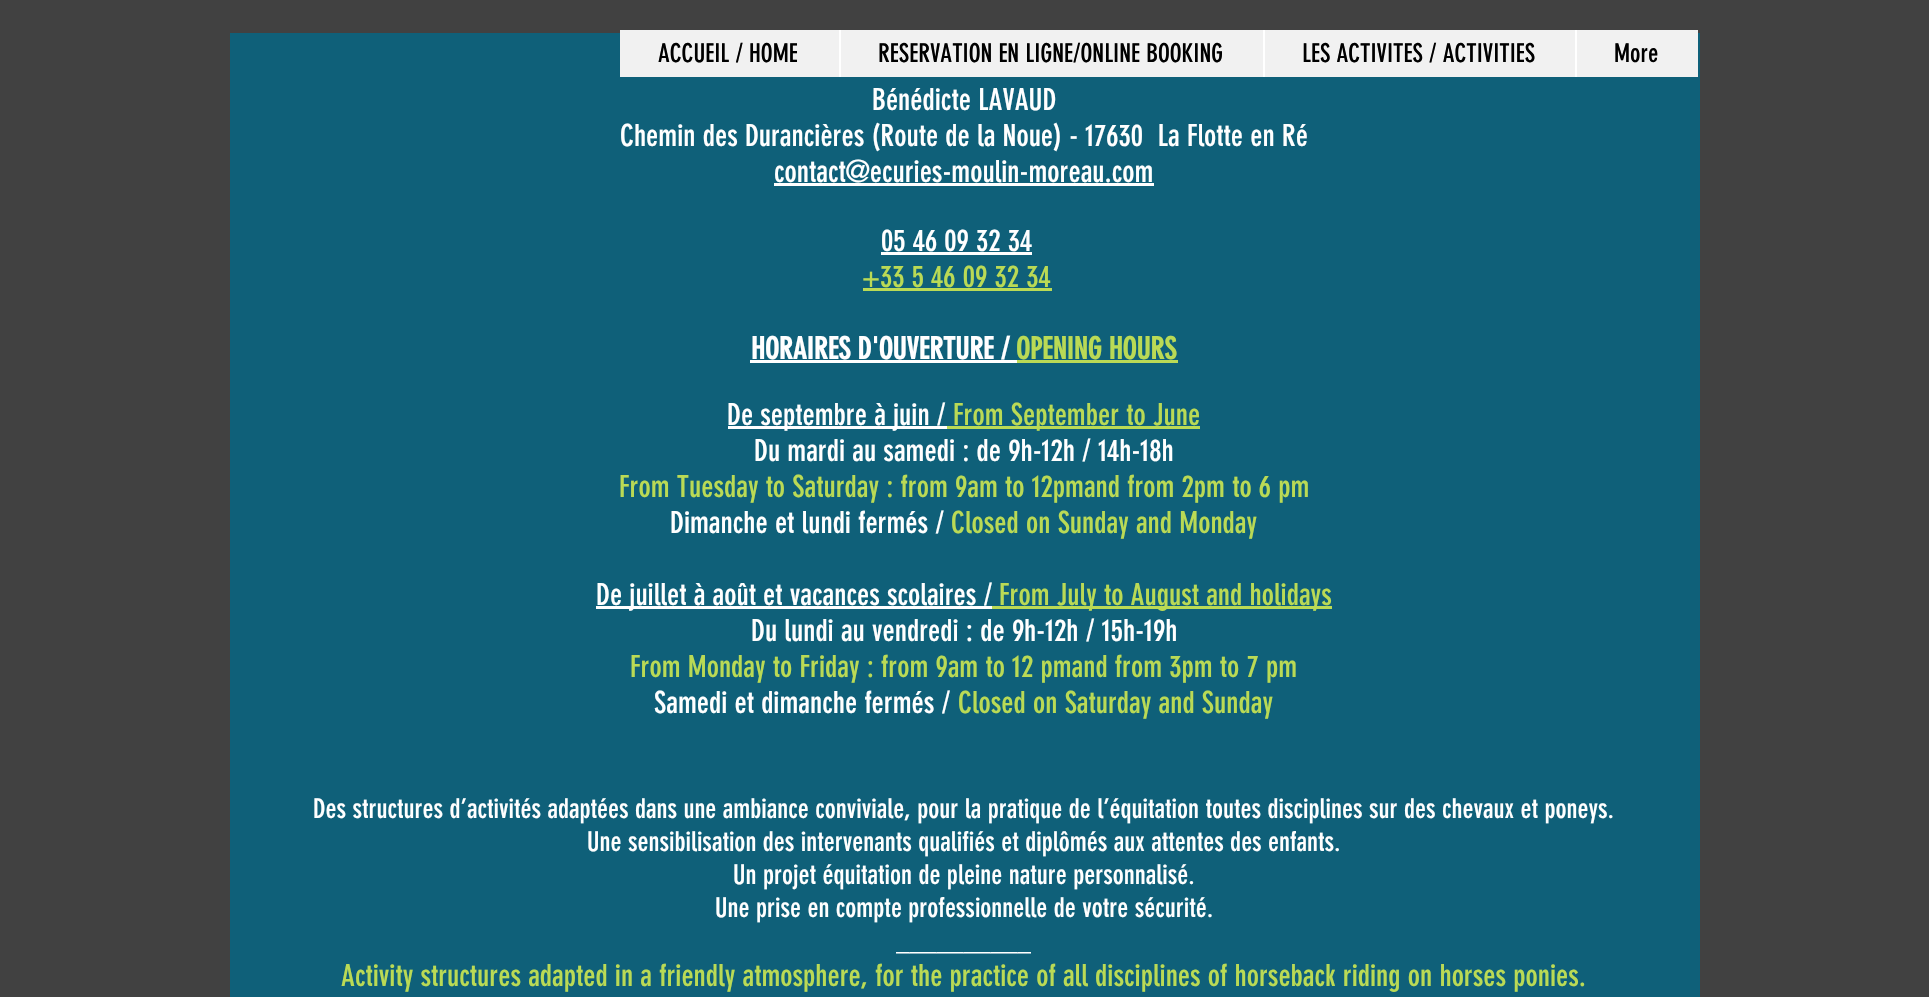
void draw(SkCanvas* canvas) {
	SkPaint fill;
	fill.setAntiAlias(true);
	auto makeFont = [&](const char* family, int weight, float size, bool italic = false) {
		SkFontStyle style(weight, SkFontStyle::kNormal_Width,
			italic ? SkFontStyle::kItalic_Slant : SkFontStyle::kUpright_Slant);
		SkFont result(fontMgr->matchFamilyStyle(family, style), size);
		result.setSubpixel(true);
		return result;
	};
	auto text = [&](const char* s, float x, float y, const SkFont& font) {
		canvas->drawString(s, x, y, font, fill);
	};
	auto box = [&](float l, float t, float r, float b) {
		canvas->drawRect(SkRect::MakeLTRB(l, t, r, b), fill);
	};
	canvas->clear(0xFF414141);
	fill.setColor(0xFF0F6079);
	box(230, 33, 1700, 997);
	fill.setColor(0xFFF1F1F1);
	box(620, 30, 1698, 77);
	fill.setColor(0xFFFFFFFF);
	box(839, 30, 841, 77);
	box(1263, 30, 1265, 77);
	box(1575, 30, 1577, 77);
	box(774, 183, 1154, 186);
	box(881, 252, 1032, 255);
	fill.setColor(0xFFBADA55);
	box(863, 288, 1052, 291);
	fill.setColor(0xFFFFFFFF);
	box(750, 360, 1017, 363);
	fill.setColor(0xFFBADA55);
	box(1017, 360, 1178, 363);
	fill.setColor(0xFFFFFFFF);
	box(728, 426, 947, 429);
	fill.setColor(0xFFBADA55);
	box(947, 426, 1200, 429);
	fill.setColor(0xFFFFFFFF);
	box(596, 606, 992, 609);
	fill.setColor(0xFFBADA55);
	box(992, 606, 1332, 609);
	auto font1 = makeFont("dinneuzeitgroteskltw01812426", 400, 25.5f);
	fill.setColor(0xFF000000);
	text("ACCUEIL / HOME", 658, 62, font1);
	text("RESERVATION EN LIGNE/ONLINE BOOKING", 878, 62, font1);
	text("LES ACTIVITES / ACTIVITIES", 1302, 62, font1);
	text("More", 1614, 62, font1);
	auto font2 = makeFont("dinneuzeitgroteskltw01812426", 400, 30);
	fill.setColor(0xFFFFFFFF);
	text("Bénédicte LAVAUD", 872, 110, font2);
	text("Chemin des Durancières (Route de la Noue) - 17630  La Flotte en Ré", 620, 146, font2);
	text("contact@ecuries-moulin-moreau.com", 774, 182, font2);
	text("05 46 09 32 34", 881, 251, font2);
	fill.setColor(0xFFBADA55);
	text("+33 5 46 09 32 34", 862, 287, font2);
	auto font3 = makeFont("dinneuzeitgroteskltw01812426", 700, 30);
	fill.setColor(0xFFFFFFFF);
	text("HORAIRES D'OUVERTURE /", 751, 359, font3);
	fill.setColor(0xFFBADA55);
	text("OPENING HOURS", 1016, 359, font3);
	fill.setColor(0xFFFFFFFF);
	text("De septembre à juin /", 727, 425, font2);
	fill.setColor(0xFFBADA55);
	text("From September to June", 953, 425, font2);
	fill.setColor(0xFFFFFFFF);
	text("Du mardi au samedi : de 9h-12h / 14h-18h", 754, 461, font2);
	fill.setColor(0xFFBADA55);
	text("From Tuesday to Saturday : from 9am to 12pmand from 2pm to 6 pm", 619, 497, font2);
	fill.setColor(0xFFFFFFFF);
	text("Dimanche et lundi fermés /", 670, 533, font2);
	fill.setColor(0xFFBADA55);
	text("Closed on Sunday and Monday", 951, 533, font2);
	fill.setColor(0xFFFFFFFF);
	text("De juillet à août et vacances scolaires /", 596, 605, font2);
	fill.setColor(0xFFBADA55);
	text("From July to August and holidays", 999, 605, font2);
	fill.setColor(0xFFFFFFFF);
	text("Du lundi au vendredi : de 9h-12h / 15h-19h", 751, 641, font2);
	fill.setColor(0xFFBADA55);
	text("From Monday to Friday : from 9am to 12 pmand from 3pm to 7 pm", 630, 677, font2);
	fill.setColor(0xFFFFFFFF);
	text("Samedi et dimanche fermés /", 654, 713, font2);
	fill.setColor(0xFFBADA55);
	text("Closed on Saturday and Sunday", 958, 713, font2);
	auto font4 = makeFont("dinneuzeitgroteskltw01812426", 400, 27);
	fill.setColor(0xFFFFFFFF);
	text("Des structures d’activités adaptées dans une ambiance conviviale, pour la pratique de l’équitation toutes disciplines sur des chevaux et poneys.", 313, 818, font4);
	text("Une sensibilisation des intervenants qualifiés et diplômés aux attentes des enfants.", 587, 851, font4);
	text("Un projet équitation de pleine nature personnalisé.", 733, 884, font4);
	text("Une prise en compte professionnelle de votre sécurité.", 715, 917, font4);
	text("__________", 896, 950, font4);
	fill.setColor(0xFFBADA55);
	text("Activity structures adapted in a friendly atmosphere, for the practice of all disciplines of horseback riding on horses ponies.", 341, 986, font2);
}
